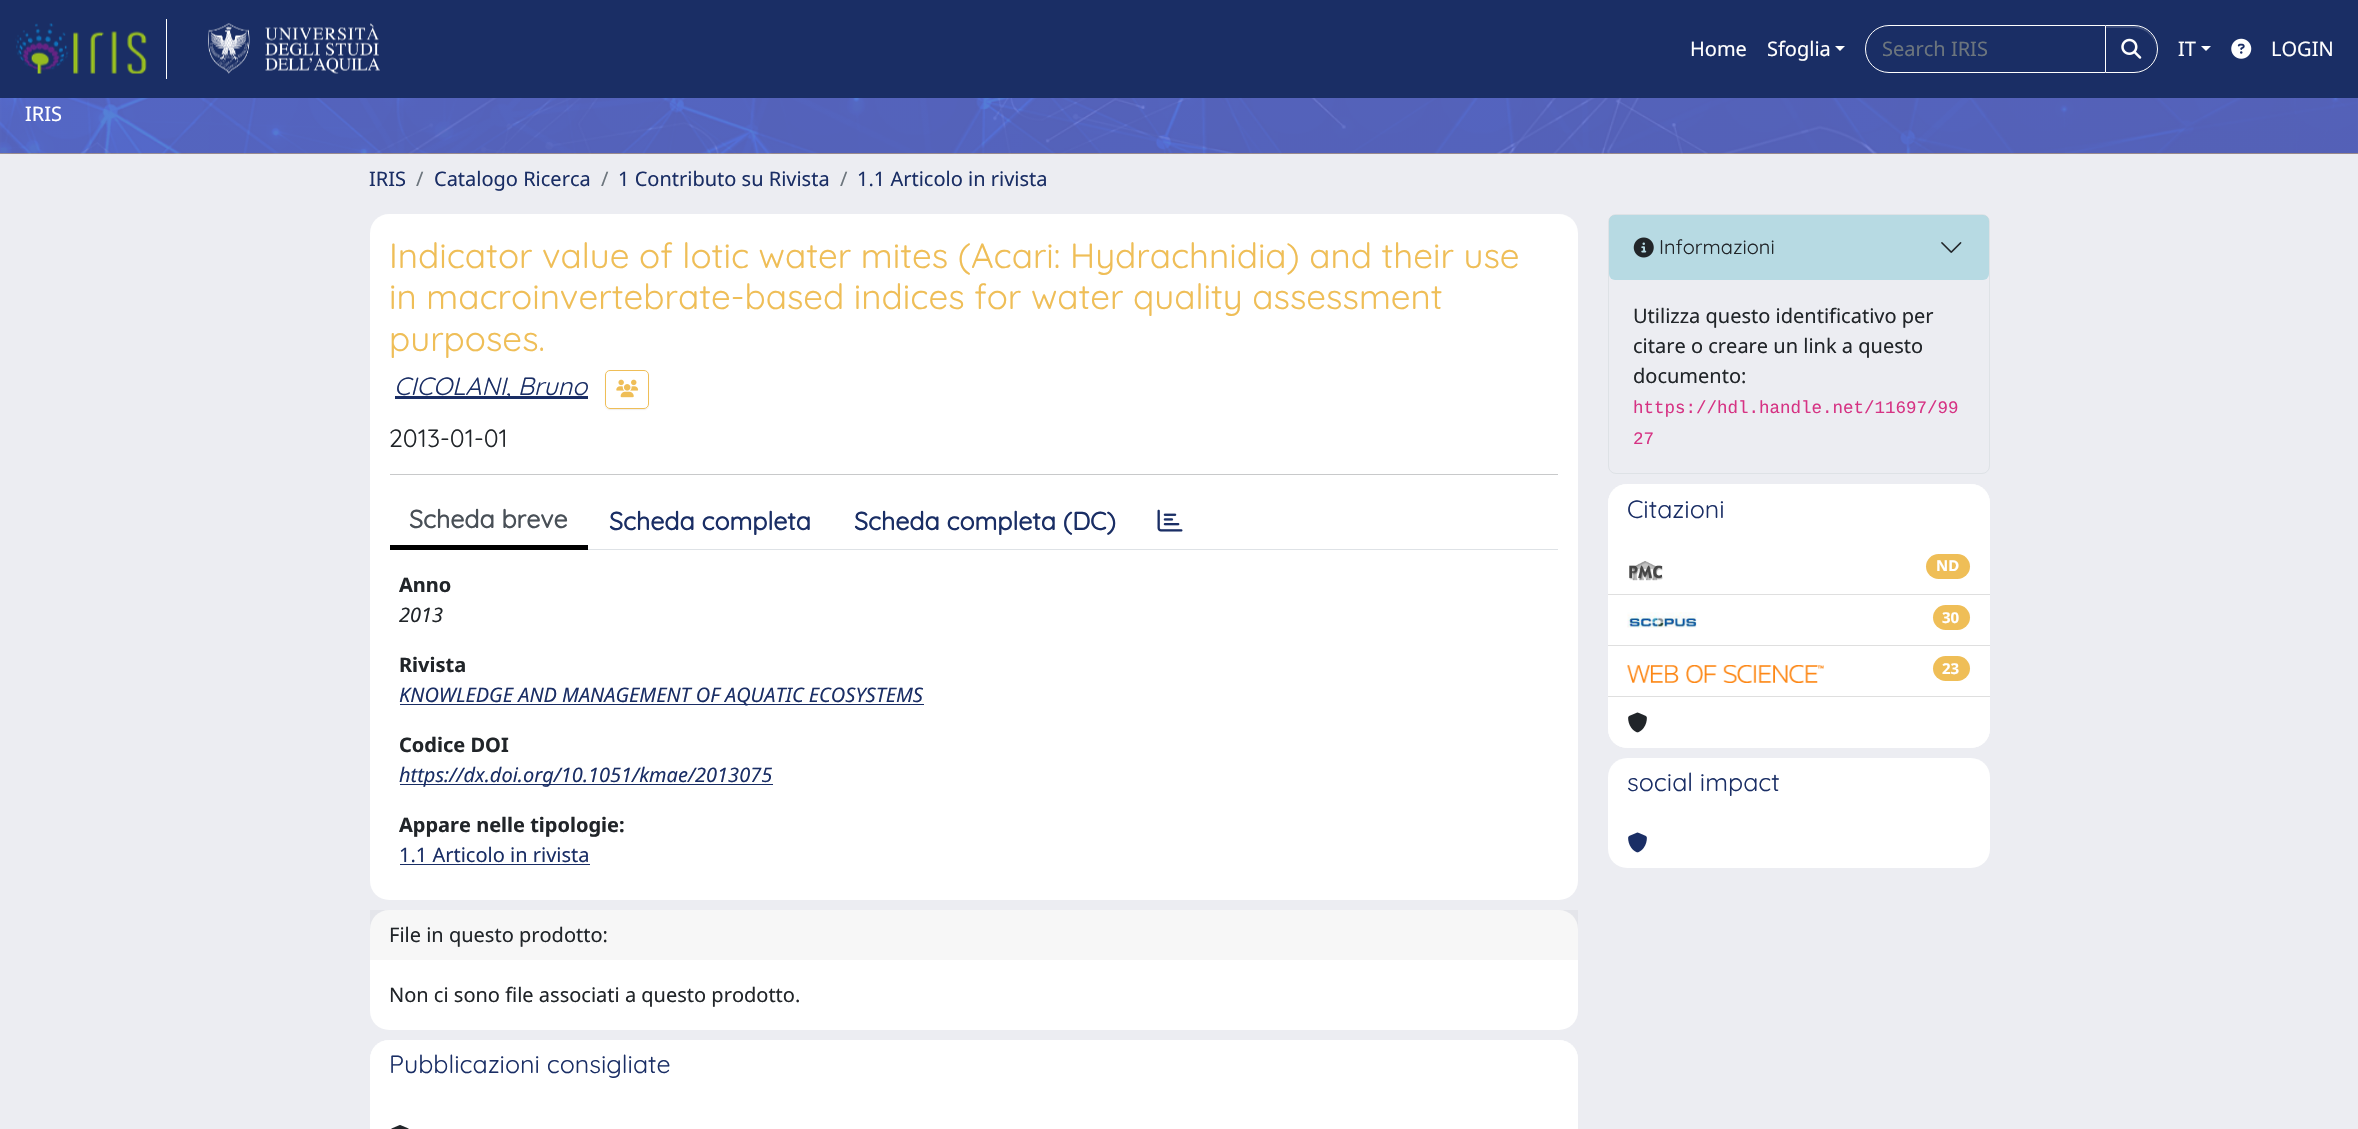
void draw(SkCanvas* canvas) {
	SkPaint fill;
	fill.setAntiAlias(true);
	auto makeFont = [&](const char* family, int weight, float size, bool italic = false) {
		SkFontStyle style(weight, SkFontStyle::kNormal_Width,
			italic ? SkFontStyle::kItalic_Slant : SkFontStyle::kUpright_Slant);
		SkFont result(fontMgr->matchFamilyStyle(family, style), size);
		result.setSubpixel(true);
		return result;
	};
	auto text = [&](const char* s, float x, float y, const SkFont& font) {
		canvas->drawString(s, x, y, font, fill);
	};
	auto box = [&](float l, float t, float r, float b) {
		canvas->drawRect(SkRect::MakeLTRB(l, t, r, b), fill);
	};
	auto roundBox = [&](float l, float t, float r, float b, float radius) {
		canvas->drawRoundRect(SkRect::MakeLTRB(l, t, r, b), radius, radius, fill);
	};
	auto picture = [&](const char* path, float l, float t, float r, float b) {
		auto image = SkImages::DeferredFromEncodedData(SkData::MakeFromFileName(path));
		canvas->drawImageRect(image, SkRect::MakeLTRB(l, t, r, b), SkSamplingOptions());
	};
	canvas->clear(0xFFECEDF2);
	fill.setColor(0xFF1A2E65);
	box(0, 0, 2358, 98);
	fill.setColor(0xFFFFFFFF);
	box(166, 19, 167, 79);
	picture("image0.png", 15, 23, 147, 74);
	picture("image1.png", 208, 23, 380, 74);
	canvas->drawPath(SkPathBuilder().moveTo(1835, 46).lineTo(1845, 46).lineTo(1840, 51).close().detach(), fill);
	fill.setStyle(SkPaint::kStroke_Style);
	fill.setStrokeWidth(1);
	canvas->drawPath(SkPathBuilder().moveTo(1889, 25.5f).lineTo(2105.5f, 25.5f).lineTo(2105.5f, 72.5f).lineTo(1889, 72.5f).cubicTo(1876, 72.5f, 1865.5f, 62, 1865.5f, 49).cubicTo(1865.5f, 36, 1876, 25.5f, 1889, 25.5f).close().detach(), fill);
	fill.setStyle(SkPaint::kFill_Style);
	fill.setColor(0x12000000);
	fill.setMaskFilter(SkMaskFilter::MakeBlur(kNormal_SkBlurStyle, 0.5f));
	canvas->drawRoundRect(SkRect::MakeLTRB(2105, 26, 2158, 74), 24, 24, fill);
	fill.setMaskFilter(nullptr);
	fill.setColor(0xFF1A2E65);
	canvas->drawPath(SkPathBuilder().moveTo(2105, 25).lineTo(2134, 25).cubicTo(2147.5f, 25, 2158, 35.5f, 2158, 49).cubicTo(2158, 62.5f, 2147.5f, 73, 2134, 73).lineTo(2105, 73).close().detach(), fill);
	fill.setColor(0xFF3C4D7C);
	canvas->drawPath(SkPathBuilder().moveTo(2106, 28).lineTo(2134, 28).cubicTo(2146, 28, 2156, 38, 2156, 49).lineTo(2156, 48).cubicTo(2156, 36, 2146, 26, 2134, 26).lineTo(2106, 26).close().detach(), fill);
	fill.setStyle(SkPaint::kStroke_Style);
	fill.setColor(0xFFFFFFFF);
	canvas->drawPath(SkPathBuilder().moveTo(2105.5f, 25.5f).lineTo(2134, 25.5f).cubicTo(2147, 25.5f, 2157.5f, 36, 2157.5f, 49).cubicTo(2157.5f, 62, 2147, 72.5f, 2134, 72.5f).lineTo(2105.5f, 72.5f).close().detach(), fill);
	picture("image2.png", 2121, 38, 2142, 59);
	fill.setStyle(SkPaint::kFill_Style);
	canvas->drawPath(SkPathBuilder().moveTo(2201, 46).lineTo(2211, 46).lineTo(2206, 51).close().detach(), fill);
	picture("image3.png", 2231, 38, 2252, 59);
	fill.setColor(0xFFEFBE57);
	box(0, 98, 2358, 154);
	picture("image4.png", 0, 98, 2358, 154);
	fill.setColor(0xFFFFFFFF);
	roundBox(370, 214, 1578, 900, 19);
	fill.setColor(0xFF1A2E65);
	box(395, 396, 588, 399);
	canvas->save();
	canvas->clipPath(SkPathBuilder(SkPathFillType::kEvenOdd).moveTo(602, 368).lineTo(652, 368).lineTo(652, 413).lineTo(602, 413).close().moveTo(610, 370).lineTo(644, 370).cubicTo(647, 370, 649, 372, 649, 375).lineTo(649, 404).cubicTo(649, 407, 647, 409, 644, 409).lineTo(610, 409).cubicTo(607, 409, 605, 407, 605, 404).lineTo(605, 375).cubicTo(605, 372, 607, 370, 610, 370).close().detach(), true);
	fill.setColor(0x12000000);
	fill.setMaskFilter(SkMaskFilter::MakeBlur(kNormal_SkBlurStyle, 0.5f));
	canvas->drawRoundRect(SkRect::MakeLTRB(605, 371, 649, 410), 5, 5, fill);
	fill.setMaskFilter(nullptr);
	canvas->restore();
	fill.setStyle(SkPaint::kStroke_Style);
	fill.setColor(0xFFEFBE57);
	canvas->drawRoundRect(SkRect::MakeLTRB(605.5f, 370.5f, 648.5f, 408.5f), 4.5f, 4.5f, fill);
	picture("image5.png", 616, 379, 639, 398);
	fill.setStyle(SkPaint::kFill_Style);
	fill.setColor(0xFFC8C9CA);
	box(390, 474, 1558, 475);
	fill.setColor(0xFFDEE2E6);
	box(588, 549, 1558, 550);
	fill.setColor(0xFF000000);
	box(390, 545, 588, 550);
	picture("image6.png", 1157, 509, 1183, 532);
	fill.setColor(0xFF1A2E65);
	box(400, 704, 924, 705);
	box(400, 784, 773, 785);
	box(400, 864, 590, 865);
	fill.setColor(0xFFFFFFFF);
	roundBox(370, 910, 1578, 1030, 19);
	fill.setColor(0x08000000);
	box(370, 910, 1578, 960);
	fill.setColor(0xFFFFFFFF);
	roundBox(370, 1040, 1578, 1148, 19);
	canvas->drawPath(SkPathBuilder().moveTo(389, 1040).lineTo(1559, 1040).cubicTo(1569.5f, 1040, 1578, 1048.5f, 1578, 1059).lineTo(1578, 1100).lineTo(370, 1100).lineTo(370, 1059).cubicTo(370, 1048.5f, 378.5f, 1040, 389, 1040).close().detach(), fill);
	picture("image7.png", 391, 1125, 409, 1129);
	fill.setStyle(SkPaint::kStroke_Style);
	fill.setColor(0xFFDEE2E6);
	canvas->drawRoundRect(SkRect::MakeLTRB(1608.5f, 214.5f, 1989.5f, 473.5f), 7.5f, 7.5f, fill);
	fill.setStyle(SkPaint::kFill_Style);
	fill.setColor(0x4017A2B8);
	roundBox(1609, 215, 1989, 280, 6);
	picture("image8.png", 1633, 237, 1654, 258);
	picture("image9.png", 1941, 242, 1962, 253);
	fill.setColor(0xFFFFFFFF);
	roundBox(1608, 484, 1990, 748, 19);
	canvas->drawPath(SkPathBuilder().moveTo(1627, 484).lineTo(1971, 484).cubicTo(1981.5f, 484, 1990, 492.5f, 1990, 503).lineTo(1990, 544).lineTo(1608, 544).lineTo(1608, 503).cubicTo(1608, 492.5f, 1616.5f, 484, 1627, 484).close().detach(), fill);
	fill.setColor(0xFFDFDFDF);
	box(1608, 594, 1990, 595);
	picture("image10.png", 1629, 561, 1663, 581);
	fill.setColor(0xFFEFBE57);
	roundBox(1926, 554, 1970, 579, 12.5f);
	fill.setColor(0xFFDFDFDF);
	box(1608, 645, 1990, 646);
	picture("image11.png", 1627, 612, 1697, 628);
	fill.setColor(0xFFEFBE57);
	roundBox(1933, 605, 1970, 630, 12.5f);
	fill.setColor(0xFFDFDFDF);
	box(1608, 696, 1990, 697);
	picture("image12.png", 1627, 665, 1824, 683);
	fill.setColor(0xFFEFBE57);
	roundBox(1933, 656, 1970, 681, 12.5f);
	fill.setColor(0xFFFFFFFF);
	canvas->drawPath(SkPathBuilder().moveTo(1608, 698).lineTo(1990, 698).lineTo(1990, 729).cubicTo(1990, 739.5f, 1981.5f, 748, 1971, 748).lineTo(1627, 748).cubicTo(1616.5f, 748, 1608, 739.5f, 1608, 729).close().detach(), fill);
	picture("image13.png", 1628, 712, 1647, 733);
	canvas->drawPath(SkPathBuilder().moveTo(1627, 758).lineTo(1971, 758).cubicTo(1981.5f, 758, 1990, 766.5f, 1990, 777).lineTo(1990, 818).lineTo(1608, 818).lineTo(1608, 777).cubicTo(1608, 766.5f, 1616.5f, 758, 1627, 758).close().detach(), fill);
	canvas->drawPath(SkPathBuilder().moveTo(1608, 818).lineTo(1990, 818).lineTo(1990, 849).cubicTo(1990, 859.5f, 1981.5f, 868, 1971, 868).lineTo(1627, 868).cubicTo(1616.5f, 868, 1608, 859.5f, 1608, 849).close().detach(), fill);
	picture("image14.png", 1628, 832, 1647, 853);
	auto font1 = makeFont("Noto Sans", 400, 20);
	text("Home", 1690, 56, font1);
	text("Sfoglia", 1767, 56, font1);
	fill.setColor(0xFF6C757D);
	text("Search IRIS", 1882, 56, font1);
	fill.setColor(0xFFFFFFFF);
	text("IT", 2178, 56, font1);
	text("LOGIN", 2271, 56, font1);
	text("IRIS", 25, 121, font1);
	fill.setColor(0xFF1A2E65);
	text("IRIS", 369, 186, font1);
	fill.setColor(0xFF6C757D);
	text("/", 416, 186, font1);
	fill.setColor(0xFF1A2E65);
	text("Catalogo Ricerca", 434, 186, font1);
	fill.setColor(0xFF6C757D);
	text("/", 601, 186, font1);
	fill.setColor(0xFF1A2E65);
	text("1 Contributo su Rivista", 618, 186, font1);
	fill.setColor(0xFF6C757D);
	text("/", 840, 186, font1);
	fill.setColor(0xFF1A2E65);
	text("1.1 Articolo in rivista", 857, 186, font1);
	auto font2 = makeFont("Quicksand", 300, 35);
	fill.setColor(0xFFEFBE57);
	text("Indicator value of lotic water mites (Acari: Hydrachnidia) and their use", 389, 268, font2);
	text("in macroinvertebrate-based indices for water quality assessment", 389, 309, font2);
	text("purposes.", 389, 351, font2);
	auto font3 = makeFont("Quicksand", 300, 25, true);
	fill.setColor(0xFF1A2E65);
	text("CICOLANI, Bruno", 394, 395, font3);
	auto font4 = makeFont("Quicksand", 300, 25);
	fill.setColor(0xFF212529);
	text("2013-01-01", 389, 447, font4);
	auto font5 = makeFont("Quicksand", 700, 25);
	fill.setColor(0xFF495057);
	text("Scheda breve", 409, 528, font5);
	fill.setColor(0xFF1A2E65);
	text("Scheda completa", 609, 530, font5);
	text("Scheda completa (DC)", 854, 530, font5);
	auto font6 = makeFont("Noto Sans", 700, 20);
	fill.setColor(0xFF212529);
	text("Anno", 399, 592, font6);
	auto font7 = makeFont("Noto Sans", 400, 20, true);
	text("2013", 399, 622, font7);
	text("Rivista", 399, 672, font6);
	fill.setColor(0xFF1A2E65);
	text("KNOWLEDGE AND MANAGEMENT OF AQUATIC ECOSYSTEMS", 399, 702, font7);
	fill.setColor(0xFF212529);
	text("Codice DOI", 399, 752, font6);
	fill.setColor(0xFF1A2E65);
	text("https://dx.doi.org/10.1051/kmae/2013075", 399, 782, font7);
	fill.setColor(0xFF212529);
	text("Appare nelle tipologie:", 399, 832, font6);
	fill.setColor(0xFF1A2E65);
	text("1.1 Articolo in rivista", 399, 862, font1);
	fill.setColor(0xFF212529);
	text("File in questo prodotto:", 389, 942, font1);
	text("Non ci sono file associati a questo prodotto.", 389, 1002, font1);
	fill.setColor(0xFF1A2E65);
	text("Pubblicazioni consigliate", 389, 1073, font4);
	auto font8 = makeFont("Quicksand", 300, 20);
	fill.setColor(0xFF212529);
	text("Informazioni", 1659, 254, font8);
	text("Utilizza questo identificativo per", 1633, 323, font1);
	text("citare o creare un link a questo", 1633, 353, font1);
	text("documento:", 1633, 383, font1);
	auto font9 = makeFont("Liberation Mono", 400, 17.5f);
	fill.setColor(0xFFD63384);
	text("https://hdl.handle.net/11697/99", 1633, 413, font9);
	text("27", 1633, 444, font9);
	fill.setColor(0xFF1A2E65);
	text("Citazioni", 1627, 518, font4);
	auto font10 = makeFont("Noto Sans", 700, 15);
	fill.setColor(0xFFFFFFFF);
	text("ND", 1936, 571, font10);
	text("30", 1942, 623, font10);
	text("23", 1942, 674, font10);
	fill.setColor(0xFF1A2E65);
	text("social impact", 1627, 791, font4);
}
